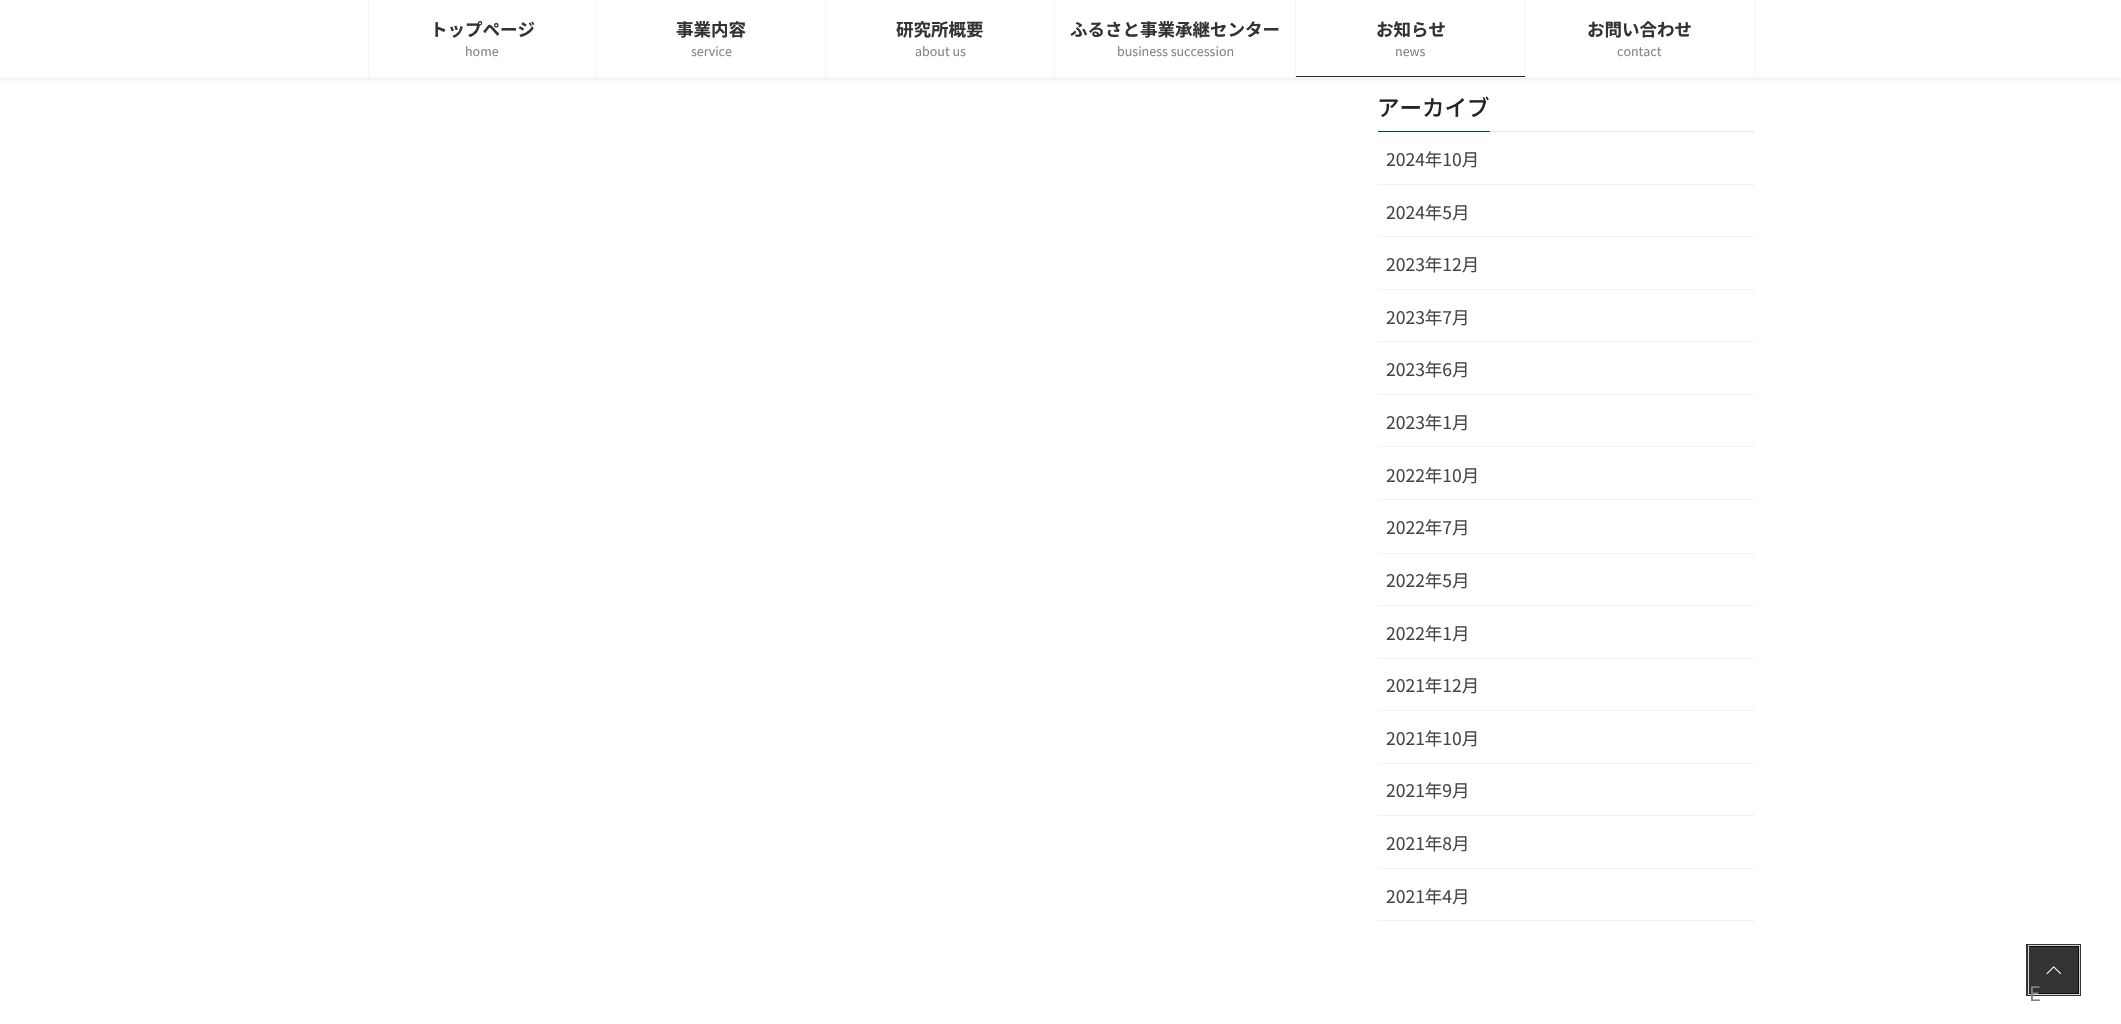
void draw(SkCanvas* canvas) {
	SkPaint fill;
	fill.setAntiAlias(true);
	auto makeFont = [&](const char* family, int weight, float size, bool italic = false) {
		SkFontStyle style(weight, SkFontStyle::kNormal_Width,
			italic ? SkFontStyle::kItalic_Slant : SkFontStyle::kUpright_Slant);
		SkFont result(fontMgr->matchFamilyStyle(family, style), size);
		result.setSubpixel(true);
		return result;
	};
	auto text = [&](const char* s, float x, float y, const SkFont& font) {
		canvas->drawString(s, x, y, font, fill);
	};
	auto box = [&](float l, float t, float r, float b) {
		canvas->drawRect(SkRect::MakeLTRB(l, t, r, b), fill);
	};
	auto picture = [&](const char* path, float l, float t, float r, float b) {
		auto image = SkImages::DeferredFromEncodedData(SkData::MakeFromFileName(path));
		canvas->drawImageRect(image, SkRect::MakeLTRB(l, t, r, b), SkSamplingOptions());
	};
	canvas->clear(0xFFFFFFFF);
	fill.setColor(0x1A000000);
	fill.setMaskFilter(SkMaskFilter::MakeBlur(kNormal_SkBlurStyle, 2));
	canvas->drawRect(SkRect::MakeLTRB(0, 1, 2121, 79), fill);
	fill.setMaskFilter(nullptr);
	fill.setColor(0xFFFFFFFF);
	box(0, 0, 2121, 78);
	fill.setColor(0xFFF5F5F5);
	box(368, 0, 369, 78);
	box(596, 0, 597, 78);
	box(825, 0, 826, 78);
	box(1054, 0, 1055, 78);
	box(1295, 0, 1296, 78);
	fill.setColor(0xFF222439);
	box(1296, 76, 1525, 77);
	fill.setColor(0xFFF5F5F5);
	box(1754, 0, 1755, 78);
	box(1525, 0, 1526, 78);
	fill.setColor(0xFFE6E6E6);
	box(1490, 131, 1755, 132);
	fill.setColor(0xFF003C7A);
	box(1378, 131, 1490, 132);
	fill.setColor(0xFFF2F2F2);
	box(1378, 184, 1755, 185);
	box(1378, 236, 1755, 237);
	box(1378, 289, 1755, 290);
	box(1378, 341, 1755, 342);
	box(1378, 394, 1755, 395);
	box(1378, 446, 1755, 447);
	box(1378, 499, 1755, 500);
	box(1378, 553, 1755, 554);
	box(1378, 605, 1755, 606);
	box(1378, 658, 1755, 659);
	box(1378, 710, 1755, 711);
	box(1378, 763, 1755, 764);
	box(1378, 815, 1755, 816);
	box(1378, 868, 1755, 869);
	box(1378, 920, 1755, 921);
	fill.setStyle(SkPaint::kStroke_Style);
	fill.setStrokeWidth(3);
	fill.setColor(0xFF333333);
	canvas->drawRect(SkRect::MakeLTRB(2027.5f, 945.5f, 2079.5f, 994.5f), fill);
	fill.setStrokeWidth(1);
	fill.setColor(0xFFD6D6D6);
	canvas->drawRect(SkRect::MakeLTRB(2028.5f, 945.5f, 2079.5f, 994.5f), fill);
	fill.setStyle(SkPaint::kFill_Style);
	fill.setColor(0xCC000000);
	box(2029, 946, 2079, 994);
	picture("image0.png", 2046, 966, 2061, 975);
	auto font1 = makeFont("Noto Sans JP", 700, 17.5f);
	fill.setColor(0xFF333333);
	text("トップページ", 430, 36, font1);
	auto font2 = makeFont("Noto Sans JP", 400, 12.5f);
	fill.setColor(0xFF858585);
	text("home", 465, 56, font2);
	fill.setColor(0xFF333333);
	text("事業内容", 676, 36, font1);
	fill.setColor(0xFF858585);
	text("service", 691, 56, font2);
	fill.setColor(0xFF333333);
	text("研究所概要", 896, 36, font1);
	fill.setColor(0xFF858585);
	text("about us", 915, 56, font2);
	fill.setColor(0xFF333333);
	text("ふるさと事業承継センター", 1070, 36, font1);
	fill.setColor(0xFF858585);
	text("business succession", 1117, 56, font2);
	fill.setColor(0xFF333333);
	text("お知らせ", 1376, 36, font1);
	fill.setColor(0xFF858585);
	text("news", 1395, 56, font2);
	fill.setColor(0xFF333333);
	text("お問い合わせ", 1587, 36, font1);
	fill.setColor(0xFF858585);
	text("contact", 1617, 56, font2);
	auto font3 = makeFont("Noto Sans JP", 500, 22.5f);
	fill.setColor(0xFF212529);
	text("アーカイブ", 1377, 116, font3);
	auto font4 = makeFont("Noto Sans JP", 400, 17.5f);
	fill.setColor(0xFF464646);
	text("2024年10月", 1386, 166, font4);
	text("2024年5月", 1386, 219, font4);
	text("2023年12月", 1386, 271, font4);
	text("2023年7月", 1386, 324, font4);
	text("2023年6月", 1386, 376, font4);
	text("2023年1月", 1386, 429, font4);
	text("2022年10月", 1386, 482, font4);
	text("2022年7月", 1386, 534, font4);
	text("2022年5月", 1386, 587, font4);
	text("2022年1月", 1386, 640, font4);
	text("2021年12月", 1386, 692, font4);
	text("2021年10月", 1386, 745, font4);
	text("2021年9月", 1386, 797, font4);
	text("2021年8月", 1386, 850, font4);
	text("2021年4月", 1386, 903, font4);
	auto font5 = makeFont("Noto Sans JP", 400, 20);
	fill.setColor(0xFF7F7F7F);
	text("E", 2029, 1001, font5);
}
